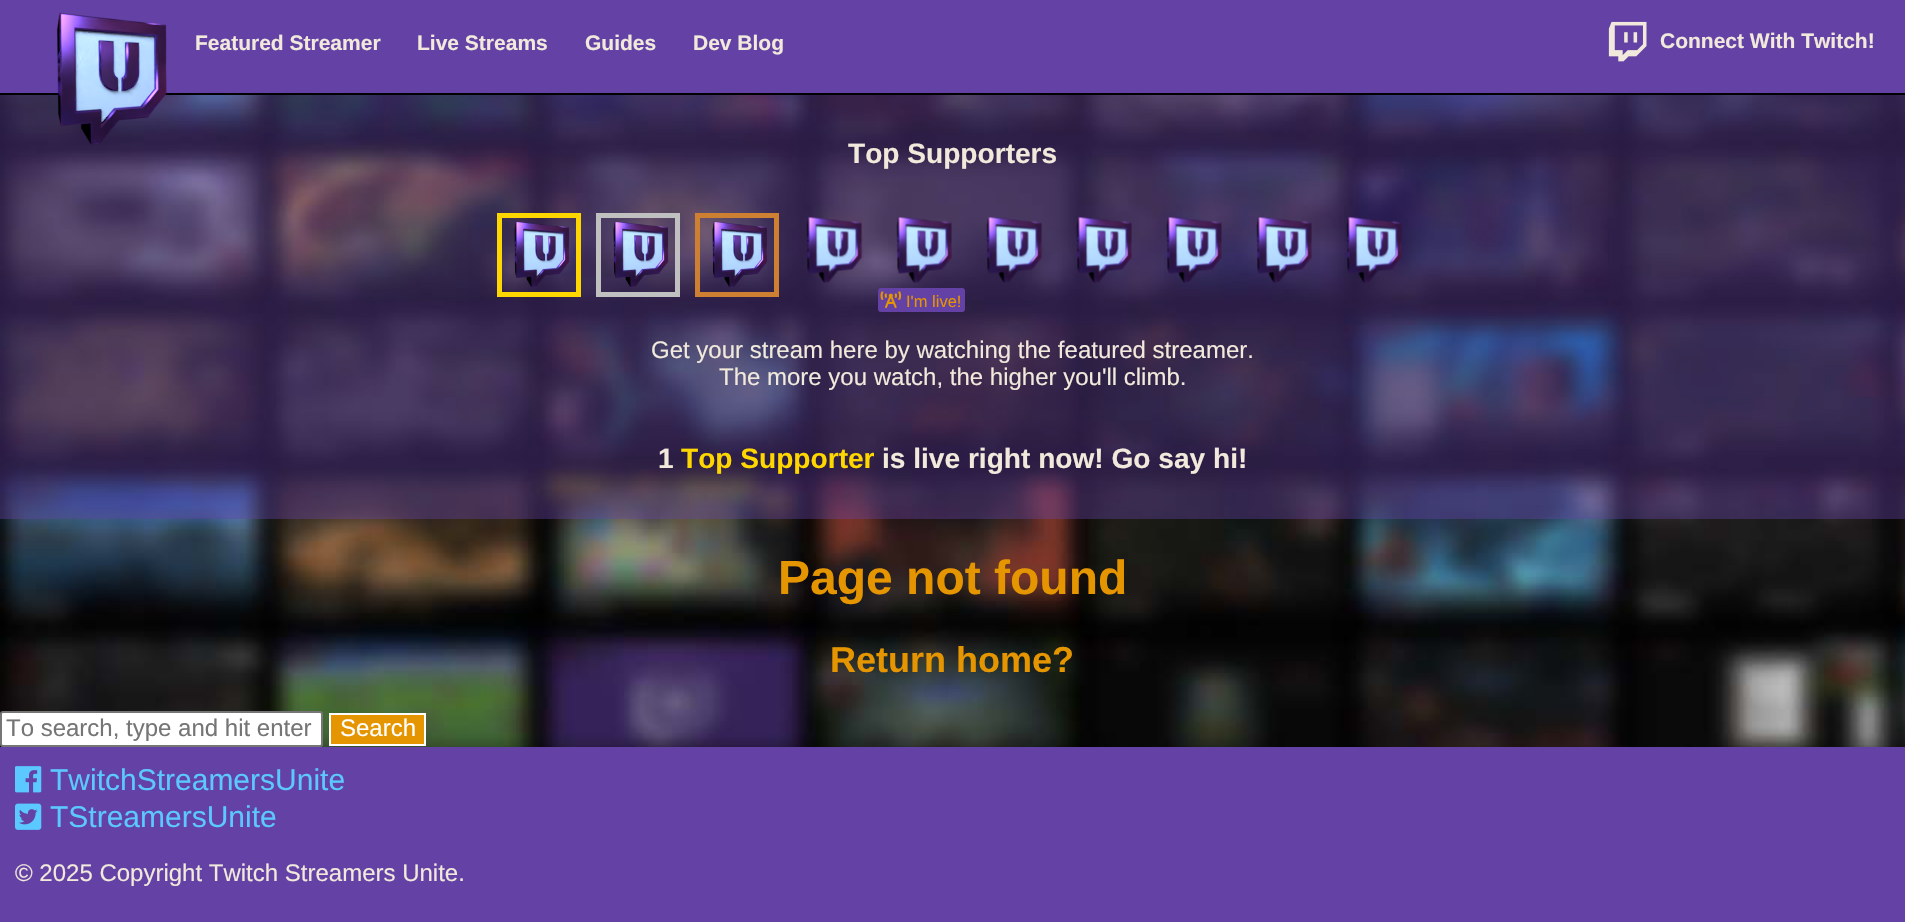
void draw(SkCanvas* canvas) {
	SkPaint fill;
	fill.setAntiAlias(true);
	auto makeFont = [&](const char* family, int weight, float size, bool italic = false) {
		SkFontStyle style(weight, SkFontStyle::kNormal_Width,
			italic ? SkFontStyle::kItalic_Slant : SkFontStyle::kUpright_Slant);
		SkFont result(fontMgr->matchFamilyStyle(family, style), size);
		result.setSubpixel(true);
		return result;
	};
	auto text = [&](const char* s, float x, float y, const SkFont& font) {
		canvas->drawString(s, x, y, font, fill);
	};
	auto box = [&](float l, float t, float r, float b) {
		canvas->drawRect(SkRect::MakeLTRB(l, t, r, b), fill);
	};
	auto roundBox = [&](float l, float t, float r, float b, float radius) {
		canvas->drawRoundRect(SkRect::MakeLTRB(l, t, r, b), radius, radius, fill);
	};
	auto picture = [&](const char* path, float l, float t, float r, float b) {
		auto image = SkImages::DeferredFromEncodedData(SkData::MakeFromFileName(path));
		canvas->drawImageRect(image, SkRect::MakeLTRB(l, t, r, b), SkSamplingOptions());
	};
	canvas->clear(0xFFFFFFFF);
	picture("image0.png", 0, 95, 1905, 747);
	fill.setColor(0xFF6441A5);
	box(0, 0, 1905, 93);
	fill.setColor(0xFF000000);
	box(0, 93, 1905, 95);
	fill.setColor(0x666441A5);
	box(0, 95, 1905, 519);
	picture("image1.png", 56, 12, 167, 145);
	picture("image2.png", 1608, 21, 1647, 62);
	fill.setStyle(SkPaint::kStroke_Style);
	fill.setStrokeWidth(5);
	fill.setColor(0xFFFFD700);
	canvas->drawRect(SkRect::MakeLTRB(499.5f, 215.5f, 578.5f, 294.5f), fill);
	picture("image3.png", 514, 221, 570, 287);
	fill.setColor(0xFFC0C0C0);
	canvas->drawRect(SkRect::MakeLTRB(598.5f, 215.5f, 677.5f, 294.5f), fill);
	picture("image4.png", 613, 221, 669, 287);
	fill.setColor(0xFFCD7F32);
	canvas->drawRect(SkRect::MakeLTRB(697.5f, 215.5f, 776.5f, 294.5f), fill);
	picture("image5.png", 712, 221, 768, 287);
	picture("image6.png", 806, 216, 863, 283);
	picture("image7.png", 986, 217, 1042, 283);
	picture("image8.png", 1076, 216, 1132, 283);
	picture("image9.png", 1166, 216, 1222, 283);
	picture("image10.png", 1256, 217, 1312, 283);
	picture("image11.png", 1346, 216, 1402, 283);
	picture("image12.png", 896, 217, 952, 283);
	fill.setStyle(SkPaint::kFill_Style);
	fill.setColor(0xFF6441A5);
	roundBox(878, 288, 965, 312, 3);
	picture("image13.png", 880, 291, 902, 308);
	fill.setColor(0xFFFFFFFF);
	canvas->drawRoundRect(SkRect::MakeLTRB(1, 712, 322, 746), 2, 2, fill);
	fill.setStyle(SkPaint::kStroke_Style);
	fill.setStrokeWidth(2);
	fill.setColor(0xFF767676);
	canvas->drawRoundRect(SkRect::MakeLTRB(1, 712, 322, 746), 2, 2, fill);
	fill.setStyle(SkPaint::kFill_Style);
	fill.setColor(0xFFE59500);
	canvas->drawRect(SkRect::MakeLTRB(330, 714, 425, 745), fill);
	fill.setStyle(SkPaint::kStroke_Style);
	fill.setColor(0xFFFFFFFF);
	canvas->drawRect(SkRect::MakeLTRB(330, 714, 425, 745), fill);
	fill.setStyle(SkPaint::kFill_Style);
	fill.setColor(0xFF6441A5);
	box(0, 747, 1905, 922);
	picture("image14.png", 15, 766, 42, 793);
	picture("image15.png", 15, 803, 42, 830);
	auto font1 = makeFont("Liberation Sans", 700, 21);
	fill.setColor(0xFFF1E9DB);
	text("Featured Streamer", 195, 50, font1);
	text("Live Streams", 417, 50, font1);
	text("Guides", 585, 50, font1);
	text("Dev Blog", 693, 50, font1);
	text("Connect With Twitch!", 1660, 48, font1);
	auto font2 = makeFont("Liberation Sans", 700, 28.1f);
	text("Top Supporters", 848, 163, font2);
	auto font3 = makeFont("Liberation Sans", 400, 16.5f);
	fill.setColor(0xFFE59500);
	text("I'm live!", 906, 307, font3);
	auto font4 = makeFont("Liberation Sans", 400, 24);
	fill.setColor(0xFFF1E9DB);
	text("Get your stream here by watching the featured streamer.", 651, 358, font4);
	text("The more you watch, the higher you'll climb.", 719, 385, font4);
	text("1", 658, 468, font2);
	fill.setColor(0xFFFFD700);
	text("Top Supporter", 681, 468, font2);
	fill.setColor(0xFFF1E9DB);
	text("is live right now! Go say hi!", 882, 468, font2);
	auto font5 = makeFont("Liberation Sans", 700, 48);
	fill.setColor(0xFFE59500);
	text("Page not found", 778, 594, font5);
	auto font6 = makeFont("Liberation Sans", 700, 36);
	text("Return home?", 830, 672, font6);
	fill.setColor(0xFF757575);
	text("To search, type and hit enter", 6, 736, font4);
	fill.setColor(0xFFFFFFFF);
	text("Search", 340, 736, font4);
	auto font7 = makeFont("Liberation Sans", 400, 30);
	fill.setColor(0xFF5BC8FF);
	text("TwitchStreamersUnite", 50, 790, font7);
	text("TStreamersUnite", 50, 827, font7);
	fill.setColor(0xFFF1E9DB);
	text("© 2025 Copyright Twitch Streamers Unite.", 15, 881, font4);
}
